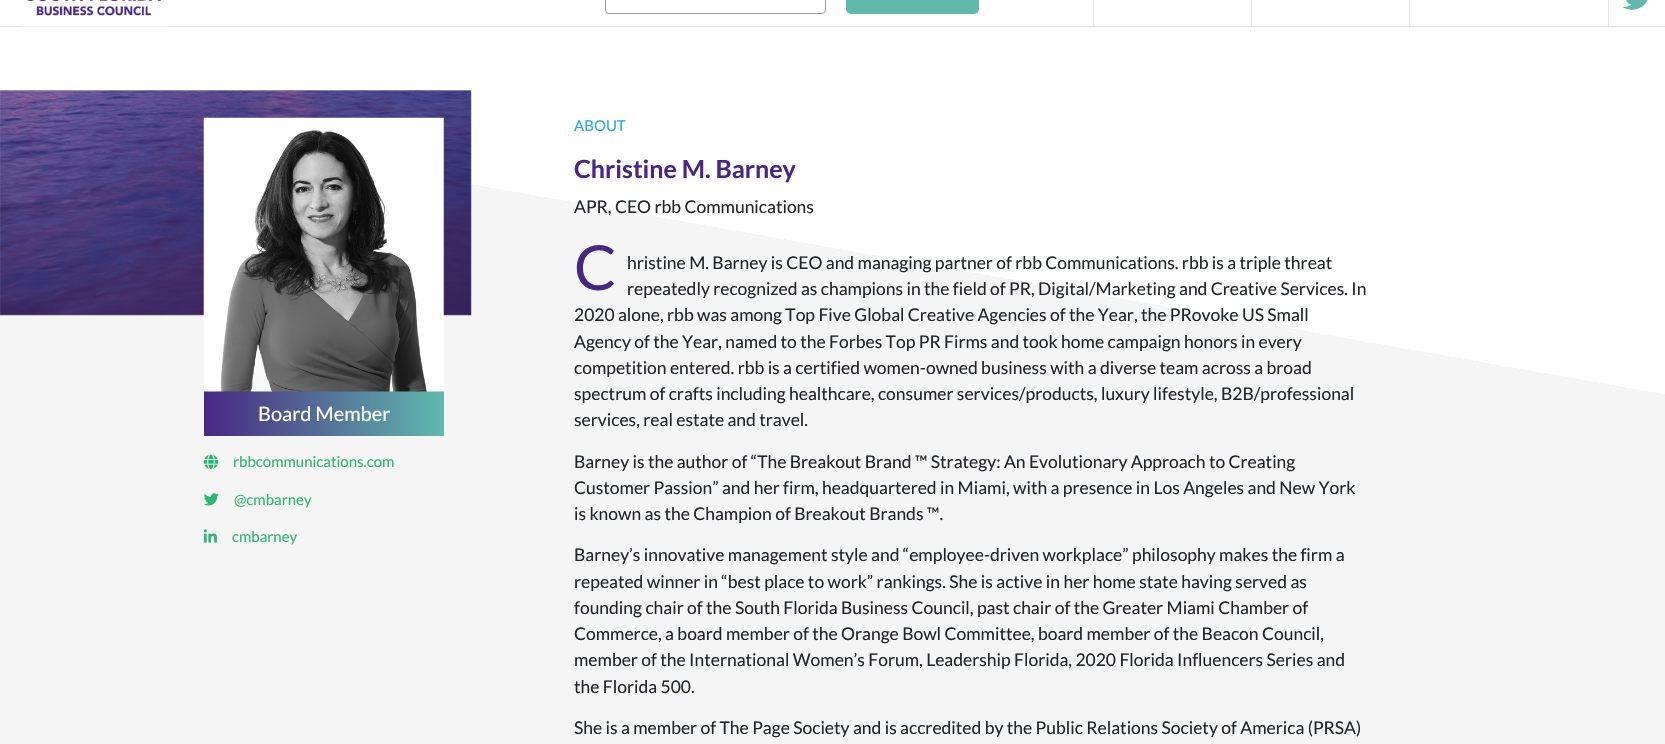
void draw(SkCanvas* canvas) {
	SkPaint fill;
	fill.setAntiAlias(true);
	auto makeFont = [&](const char* family, int weight, float size, bool italic = false) {
		SkFontStyle style(weight, SkFontStyle::kNormal_Width,
			italic ? SkFontStyle::kItalic_Slant : SkFontStyle::kUpright_Slant);
		SkFont result(fontMgr->matchFamilyStyle(family, style), size);
		result.setSubpixel(true);
		return result;
	};
	auto text = [&](const char* s, float x, float y, const SkFont& font) {
		canvas->drawString(s, x, y, font, fill);
	};
	auto box = [&](float l, float t, float r, float b) {
		canvas->drawRect(SkRect::MakeLTRB(l, t, r, b), fill);
	};
	auto roundBox = [&](float l, float t, float r, float b, float radius) {
		canvas->drawRoundRect(SkRect::MakeLTRB(l, t, r, b), radius, radius, fill);
	};
	auto picture = [&](const char* path, float l, float t, float r, float b) {
		auto image = SkImages::DeferredFromEncodedData(SkData::MakeFromFileName(path));
		canvas->drawImageRect(image, SkRect::MakeLTRB(l, t, r, b), SkSamplingOptions());
	};
	canvas->clear(0xFFFFFFFF);
	fill.setColor(0xFFE5E5E5);
	box(0, 26, 1665, 27);
	picture("image0.png", 19, 0, 169, 27);
	fill.setStyle(SkPaint::kStroke_Style);
	fill.setStrokeWidth(1);
	fill.setColor(0xFF999999);
	canvas->drawRoundRect(SkRect::MakeLTRB(605.5f, -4.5f, 825.5f, 13.5f), 3.5f, 3.5f, fill);
	fill.setStyle(SkPaint::kFill_Style);
	fill.setColor(0xFF61B9AD);
	roundBox(846, -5, 979, 14, 5);
	fill.setColor(0xFFE5E5E5);
	box(1093, 0, 1094, 26);
	box(1251, 0, 1252, 26);
	box(1608, 0, 1609, 26);
	box(1409, 0, 1410, 26);
	picture("image1.png", 1622, 0, 1648, 10);
	{
		const SkColor colors[] = {0xFFFFFFFF, 0xFFF5F5F5};
		const float stops[] = {0.3f, 0.3f};
		const SkPoint ends[] = {{937, -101}, {728, 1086}};
		fill.setShader(SkGradientShader::MakeLinear(ends, colors, stops, 2, SkTileMode::kClamp));
		fill.setAlpha(255);
	}
	box(0, 101, 1665, 744);
	picture("image2.png", 0, 90, 472, 316);
	{
		const SkColor colors[] = {0xFF482783, 0xFF61B9AD};
		const float stops[] = {0, 1};
		const SkPoint ends[] = {{204, 414}, {444, 414}};
		fill.setShader(SkGradientShader::MakeLinear(ends, colors, stops, 2, SkTileMode::kClamp));
		fill.setAlpha(255);
	}
	box(204, 391, 444, 436);
	picture("image3.png", 203, 117, 444, 392);
	picture("image4.png", 203, 454, 219, 470);
	picture("image5.png", 204, 493, 219, 506);
	picture("image6.png", 203, 529, 217, 543);
	auto font1 = makeFont("Lato", 400, 20);
	fill.setShader(nullptr);
	fill.setColor(0xFFFFFFFF);
	text("Board Member", 258, 421, font1);
	auto font2 = makeFont("Lato", 400, 15);
	fill.setColor(0xFF2BB673);
	text("rbbcommunications.com", 233, 467, font2);
	text("@cmbarney", 234, 505, font2);
	text("cmbarney", 232, 542, font2);
	fill.setColor(0xFF27AAE1);
	text("ABOUT", 574, 131, font2);
	auto font3 = makeFont("Lato", 700, 25);
	fill.setColor(0xFF482783);
	text("Christine M. Barney", 574, 178, font3);
	auto font4 = makeFont("Lato", 400, 17.5f);
	fill.setColor(0xFF212529);
	text("APR, CEO rbb Communications", 574, 213, font4);
	auto font5 = makeFont("Lato", 400, 62);
	fill.setColor(0xFF482783);
	text("C", 574, 290, font5);
	fill.setColor(0xFF212529);
	text("hristine M. Barney is CEO and managing partner of rbb Communications. rbb is a triple threat", 627, 269, font4);
	text("repeatedly recognized as champions in the field of PR, Digital/Marketing and Creative Services. In", 627, 295, font4);
	text("2020 alone, rbb was among Top Five Global Creative Agencies of the Year, the PRovoke US Small", 574, 321, font4);
	text("Agency of the Year, named to the Forbes Top PR Firms and took home campaign honors in every", 574, 348, font4);
	text("competition entered. rbb is a certified women-owned business with a diverse team across a broad", 574, 374, font4);
	text("spectrum of crafts including healthcare, consumer services/products, luxury lifestyle, B2B/professional", 574, 400, font4);
	text("services, real estate and travel.", 574, 426, font4);
	text("Barney is the author of “The Breakout Brand ™ Strategy: An Evolutionary Approach to Creating", 574, 468, font4);
	text("Customer Passion” and her firm, headquartered in Miami, with a presence in Los Angeles and New York", 574, 494, font4);
	text("is known as the Champion of Breakout Brands ™.", 574, 520, font4);
	text("Barney’s innovative management style and “employee-driven workplace” philosophy makes the firm a", 574, 561, font4);
	text("repeated winner in “best place to work” rankings. She is active in her home state having served as", 574, 588, font4);
	text("founding chair of the South Florida Business Council, past chair of the Greater Miami Chamber of", 574, 614, font4);
	text("Commerce, a board member of the Orange Bowl Committee, board member of the Beacon Council,", 574, 640, font4);
	text("member of the International Women’s Forum, Leadership Florida, 2020 Florida Influencers Series and", 574, 666, font4);
	text("the Florida 500.", 574, 693, font4);
	text("She is a member of The Page Society and is accredited by the Public Relations Society of America (PRSA)", 574, 734, font4);
}
